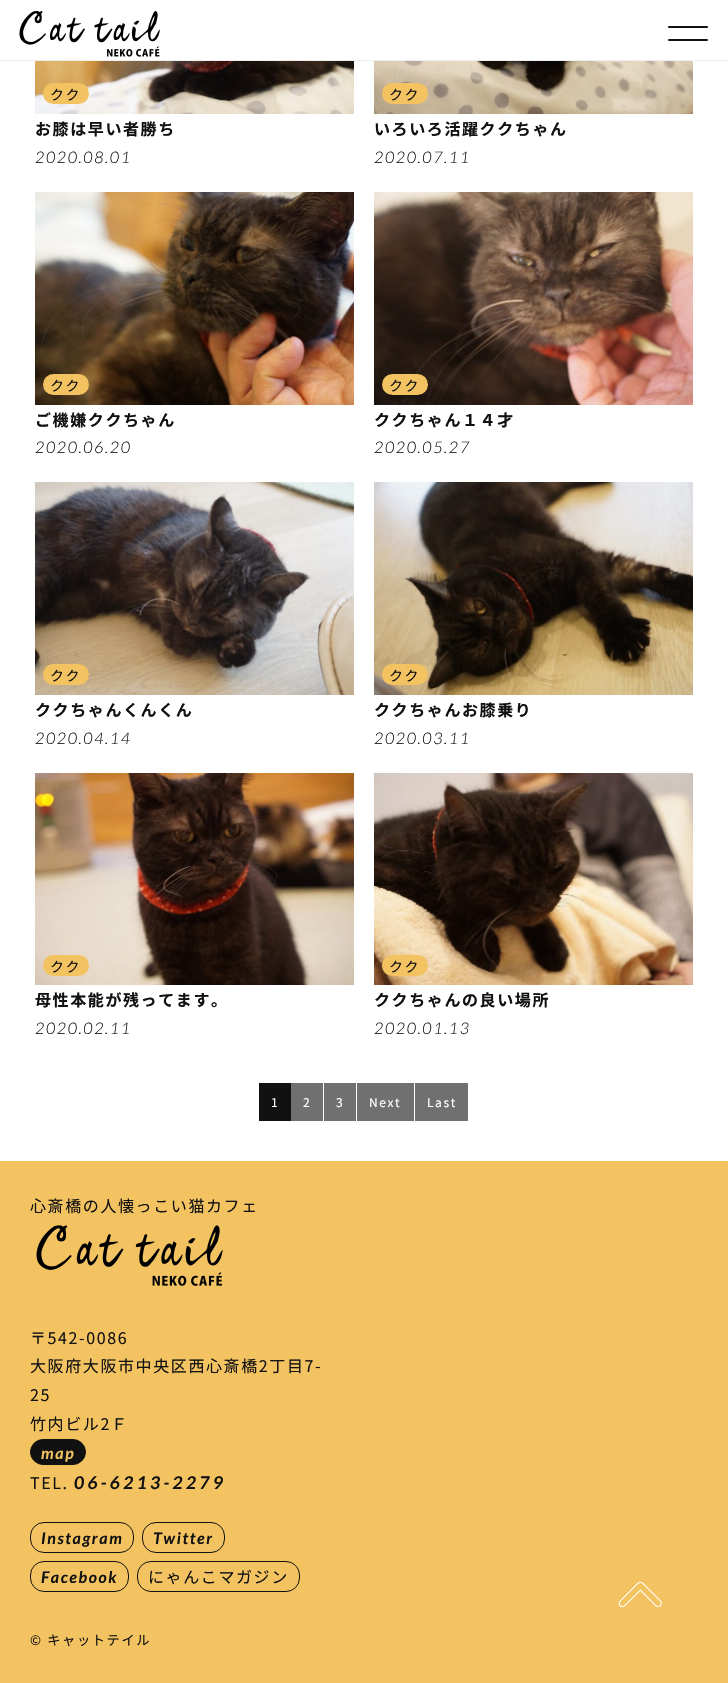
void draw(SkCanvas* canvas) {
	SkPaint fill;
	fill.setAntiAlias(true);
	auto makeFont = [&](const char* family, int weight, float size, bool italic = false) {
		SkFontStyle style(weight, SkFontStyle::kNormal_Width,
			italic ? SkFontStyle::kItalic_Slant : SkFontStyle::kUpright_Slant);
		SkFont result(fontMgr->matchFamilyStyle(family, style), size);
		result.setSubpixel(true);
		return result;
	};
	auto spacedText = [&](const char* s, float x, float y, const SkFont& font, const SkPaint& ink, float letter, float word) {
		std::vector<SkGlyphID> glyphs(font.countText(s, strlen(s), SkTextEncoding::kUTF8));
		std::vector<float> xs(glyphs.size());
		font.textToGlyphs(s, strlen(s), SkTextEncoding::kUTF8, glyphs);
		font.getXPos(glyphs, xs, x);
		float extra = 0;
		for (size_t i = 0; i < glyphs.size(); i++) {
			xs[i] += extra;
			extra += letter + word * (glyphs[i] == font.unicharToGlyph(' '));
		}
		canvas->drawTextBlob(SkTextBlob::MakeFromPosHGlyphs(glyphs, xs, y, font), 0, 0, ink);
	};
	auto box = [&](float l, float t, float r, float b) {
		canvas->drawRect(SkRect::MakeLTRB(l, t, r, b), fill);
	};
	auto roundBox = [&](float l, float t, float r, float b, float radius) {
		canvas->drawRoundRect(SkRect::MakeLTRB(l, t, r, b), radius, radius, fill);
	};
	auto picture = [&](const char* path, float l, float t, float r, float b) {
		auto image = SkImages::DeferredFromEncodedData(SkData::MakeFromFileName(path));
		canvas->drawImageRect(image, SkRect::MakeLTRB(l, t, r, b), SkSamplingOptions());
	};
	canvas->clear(0xFFFFFFFF);
	fill.setColor(0xFFEEEEEE);
	box(0, 60, 728, 61);
	picture("image0.png", 19, 11, 160, 57);
	fill.setColor(0xFF111111);
	roundBox(668, 26, 708, 28, 1);
	roundBox(668, 39, 708, 41, 1);
	picture("image1.png", 35, 61, 354, 114);
	fill.setColor(0xFFF3C261);
	roundBox(43, 83, 89, 104, 10.5f);
	picture("image2.png", 374, 61, 693, 114);
	roundBox(382, 83, 428, 104, 10.5f);
	picture("image3.png", 35, 192, 354, 405);
	roundBox(43, 374, 89, 395, 10.5f);
	picture("image4.png", 374, 192, 693, 405);
	roundBox(382, 374, 428, 395, 10.5f);
	picture("image5.png", 35, 482, 354, 695);
	roundBox(43, 664, 89, 685, 10.5f);
	picture("image6.png", 374, 482, 693, 695);
	roundBox(382, 664, 428, 685, 10.5f);
	picture("image7.png", 35, 773, 354, 985);
	roundBox(43, 955, 89, 976, 10.5f);
	picture("image8.png", 374, 773, 693, 985);
	roundBox(382, 955, 428, 976, 10.5f);
	fill.setColor(0xFF111111);
	box(259, 1083, 291, 1121);
	fill.setColor(0xFF707070);
	box(291, 1083, 323, 1121);
	box(324, 1083, 356, 1121);
	box(357, 1083, 414, 1121);
	box(415, 1083, 468, 1121);
	fill.setColor(0xFFF3C261);
	box(0, 1161, 728, 1683);
	picture("image9.png", 36, 1225, 223, 1286);
	fill.setColor(0xFF111111);
	canvas->drawRoundRect(SkRect::MakeLTRB(30.5f, 1439.5f, 85.5f, 1464.5f), 12.5f, 12.5f, fill);
	fill.setStyle(SkPaint::kStroke_Style);
	fill.setStrokeWidth(1);
	canvas->drawRoundRect(SkRect::MakeLTRB(30.5f, 1439.5f, 85.5f, 1464.5f), 12.5f, 12.5f, fill);
	canvas->drawRoundRect(SkRect::MakeLTRB(30.5f, 1522.5f, 133.5f, 1552.5f), 13.5f, 13.5f, fill);
	canvas->drawRoundRect(SkRect::MakeLTRB(142.5f, 1522.5f, 224.5f, 1552.5f), 13.5f, 13.5f, fill);
	canvas->drawRoundRect(SkRect::MakeLTRB(30.5f, 1561.5f, 128.5f, 1591.5f), 13.5f, 13.5f, fill);
	canvas->drawRoundRect(SkRect::MakeLTRB(137.5f, 1561.5f, 299.5f, 1591.5f), 13.5f, 13.5f, fill);
	picture("image10.png", 618, 1581, 662, 1608);
	auto font1 = makeFont("Noto Sans JP", 400, 14);
	fill.setStyle(SkPaint::kFill_Style);
	spacedText("クク", 50, 100, font1, fill, 1.6f, 0);
	auto font2 = makeFont("Noto Sans JP", 700, 16);
	spacedText("お膝は早い者勝ち", 35, 135, font2, fill, 1.6f, 0);
	auto font3 = makeFont("Lato", 300, 16, true);
	spacedText("2020.08.01", 35, 163, font3, fill, 1.6f, 0);
	spacedText("クク", 389, 100, font1, fill, 1.6f, 0);
	spacedText("いろいろ活躍ククちゃん", 374, 135, font2, fill, 1.6f, 0);
	spacedText("2020.07.11", 374, 163, font3, fill, 1.6f, 0);
	spacedText("クク", 50, 391, font1, fill, 1.6f, 0);
	spacedText("ご機嫌ククちゃん", 35, 426, font2, fill, 1.6f, 0);
	spacedText("2020.06.20", 35, 453, font3, fill, 1.6f, 0);
	spacedText("クク", 389, 391, font1, fill, 1.6f, 0);
	spacedText("ククちゃん１４才", 374, 426, font2, fill, 1.6f, 0);
	spacedText("2020.05.27", 374, 453, font3, fill, 1.6f, 0);
	spacedText("クク", 50, 681, font1, fill, 1.6f, 0);
	spacedText("ククちゃんくんくん", 35, 716, font2, fill, 1.6f, 0);
	spacedText("2020.04.14", 35, 744, font3, fill, 1.6f, 0);
	spacedText("クク", 389, 681, font1, fill, 1.6f, 0);
	spacedText("ククちゃんお膝乗り", 374, 716, font2, fill, 1.6f, 0);
	spacedText("2020.03.11", 374, 744, font3, fill, 1.6f, 0);
	spacedText("クク", 50, 972, font1, fill, 1.6f, 0);
	spacedText("母性本能が残ってます。", 35, 1006, font2, fill, 1.6f, 0);
	spacedText("2020.02.11", 35, 1034, font3, fill, 1.6f, 0);
	spacedText("クク", 389, 972, font1, fill, 1.6f, 0);
	spacedText("ククちゃんの良い場所", 374, 1006, font2, fill, 1.6f, 0);
	spacedText("2020.01.13", 374, 1034, font3, fill, 1.6f, 0);
	auto font4 = makeFont("Noto Sans JP", 400, 12);
	fill.setColor(0xFFFFFFFF);
	spacedText("1", 271, 1107, font4, fill, 1.6f, 0);
	spacedText("2", 303, 1107, font4, fill, 1.6f, 0);
	spacedText("3", 336, 1107, font4, fill, 1.6f, 0);
	spacedText("Next", 369, 1107, font4, fill, 1.6f, 0);
	spacedText("Last", 427, 1107, font4, fill, 1.6f, 0);
	auto font5 = makeFont("Noto Sans JP", 400, 16);
	fill.setColor(0xFF111111);
	spacedText("心斎橋の人懐っこい猫カフェ", 30, 1212, font5, fill, 1.6f, 0);
	spacedText("〒542-0086", 30, 1344, font5, fill, 1.6f, 0);
	spacedText("大阪府大阪市中央区西心斎橋2丁目7-", 30, 1372, font5, fill, 1.6f, 0);
	spacedText("25", 30, 1401, font5, fill, 1.6f, 0);
	spacedText("竹内ビル2Ｆ", 30, 1430, font5, fill, 1.6f, 0);
	auto font6 = makeFont("Lato", 700, 16, true);
	fill.setColor(0xFFF3C261);
	spacedText("map", 41, 1459, font6, fill, 1.6f, 0);
	fill.setColor(0xFF111111);
	spacedText("TEL.", 30, 1489, font5, fill, 1.6f, 0);
	auto font7 = makeFont("Lato", 700, 17.5f, true);
	spacedText("06-6213-2279", 74, 1489, font7, fill, 3.25f, 0);
	spacedText("Instagram", 41, 1544, font6, fill, 1.6f, 0);
	spacedText("Twitter", 153, 1544, font6, fill, 1.6f, 0);
	spacedText("Facebook", 41, 1583, font6, fill, 1.6f, 0);
	spacedText("にゃんこマガジン", 148, 1583, font5, fill, 1.6f, 0);
	auto font8 = makeFont("Noto Sans JP", 400, 13.25f);
	spacedText("© キャットテイル", 30, 1645, font8, fill, 1.6f, 0);
}
